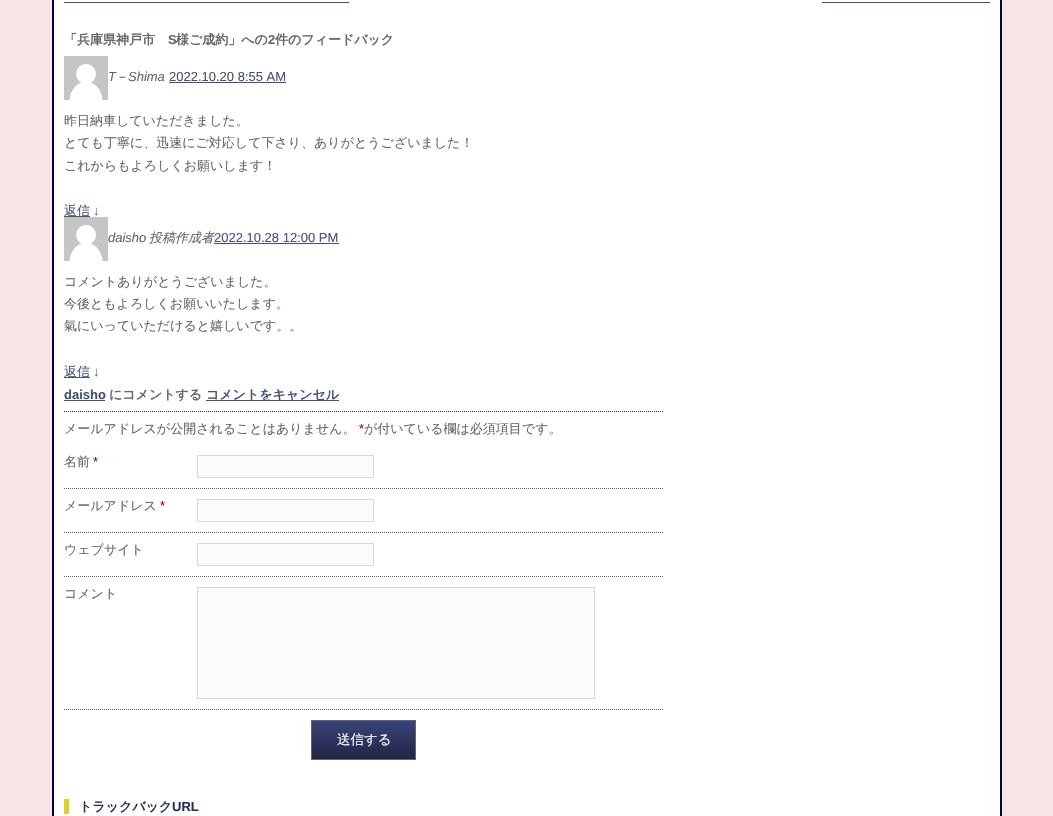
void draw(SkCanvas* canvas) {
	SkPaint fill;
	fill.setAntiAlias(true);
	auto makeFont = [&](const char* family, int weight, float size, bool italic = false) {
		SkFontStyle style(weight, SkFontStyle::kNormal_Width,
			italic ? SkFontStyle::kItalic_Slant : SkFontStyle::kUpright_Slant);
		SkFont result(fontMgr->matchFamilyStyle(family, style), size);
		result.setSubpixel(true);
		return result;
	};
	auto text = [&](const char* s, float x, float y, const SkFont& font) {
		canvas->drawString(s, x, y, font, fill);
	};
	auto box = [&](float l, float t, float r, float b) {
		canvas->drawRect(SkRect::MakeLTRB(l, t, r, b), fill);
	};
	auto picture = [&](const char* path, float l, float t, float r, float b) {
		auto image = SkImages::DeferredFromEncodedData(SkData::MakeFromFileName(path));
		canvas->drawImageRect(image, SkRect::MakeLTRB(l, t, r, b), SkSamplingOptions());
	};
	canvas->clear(0xFFFAE3E5);
	fill.setColor(0xFFFFFFFF);
	canvas->drawRect(SkRect::MakeLTRB(53, -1, 1001, 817), fill);
	fill.setStyle(SkPaint::kStroke_Style);
	fill.setStrokeWidth(2);
	fill.setColor(0xFF000838);
	canvas->drawRect(SkRect::MakeLTRB(53, -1, 1001, 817), fill);
	fill.setStyle(SkPaint::kFill_Style);
	fill.setColor(0xFF465272);
	box(64, 2, 349, 3);
	box(822, 2, 990, 3);
	picture("image0.png", 64, 56, 108, 100);
	box(169, 82, 286, 83);
	box(64, 216, 90, 217);
	picture("image0.png", 64, 217, 108, 261);
	box(64, 377, 90, 378);
	fill.setStyle(SkPaint::kStroke_Style);
	fill.setStrokeWidth(1);
	fill.setColor(0xFF293058);
	fill.setPathEffect(SkDashPathEffect::Make({{1, 1}}, 0));
	canvas->drawPath(SkPathBuilder().moveTo(64, 411.5f).lineTo(664, 411.5f).detach(), fill);
	fill.setPathEffect(nullptr);
	fill.setStyle(SkPaint::kFill_Style);
	fill.setColor(0xFF465272);
	box(64, 400, 105, 401);
	box(206, 400, 339, 401);
	fill.setStyle(SkPaint::kStroke_Style);
	fill.setColor(0xFF79634B);
	fill.setPathEffect(SkDashPathEffect::Make({{1, 1}}, 0));
	canvas->drawPath(SkPathBuilder().moveTo(64, 488.5f).lineTo(664, 488.5f).detach(), fill);
	fill.setPathEffect(nullptr);
	fill.setStyle(SkPaint::kFill_Style);
	fill.setColor(0xFFFBFBFB);
	canvas->drawRect(SkRect::MakeLTRB(197.5f, 455.5f, 373.5f, 477.5f), fill);
	fill.setStyle(SkPaint::kStroke_Style);
	fill.setColor(0xFFD9D9D9);
	canvas->drawRect(SkRect::MakeLTRB(197.5f, 455.5f, 373.5f, 477.5f), fill);
	fill.setColor(0xFF79634B);
	fill.setPathEffect(SkDashPathEffect::Make({{1, 1}}, 0));
	canvas->drawPath(SkPathBuilder().moveTo(64, 532.5f).lineTo(664, 532.5f).detach(), fill);
	fill.setPathEffect(nullptr);
	fill.setStyle(SkPaint::kFill_Style);
	fill.setColor(0xFFFBFBFB);
	canvas->drawRect(SkRect::MakeLTRB(197.5f, 499.5f, 373.5f, 521.5f), fill);
	fill.setStyle(SkPaint::kStroke_Style);
	fill.setColor(0xFFD9D9D9);
	canvas->drawRect(SkRect::MakeLTRB(197.5f, 499.5f, 373.5f, 521.5f), fill);
	fill.setColor(0xFF79634B);
	fill.setPathEffect(SkDashPathEffect::Make({{1, 1}}, 0));
	canvas->drawPath(SkPathBuilder().moveTo(64, 576.5f).lineTo(664, 576.5f).detach(), fill);
	fill.setPathEffect(nullptr);
	fill.setStyle(SkPaint::kFill_Style);
	fill.setColor(0xFFFBFBFB);
	canvas->drawRect(SkRect::MakeLTRB(197.5f, 543.5f, 373.5f, 565.5f), fill);
	fill.setStyle(SkPaint::kStroke_Style);
	fill.setColor(0xFFD9D9D9);
	canvas->drawRect(SkRect::MakeLTRB(197.5f, 543.5f, 373.5f, 565.5f), fill);
	fill.setColor(0xFF79634B);
	fill.setPathEffect(SkDashPathEffect::Make({{1, 1}}, 0));
	canvas->drawPath(SkPathBuilder().moveTo(64, 709.5f).lineTo(664, 709.5f).detach(), fill);
	fill.setPathEffect(nullptr);
	fill.setStyle(SkPaint::kFill_Style);
	fill.setColor(0xFFFBFBFB);
	canvas->drawRect(SkRect::MakeLTRB(197.5f, 587.5f, 594.5f, 698.5f), fill);
	fill.setStyle(SkPaint::kStroke_Style);
	fill.setColor(0xFFD9D9D9);
	canvas->drawRect(SkRect::MakeLTRB(197.5f, 587.5f, 594.5f, 698.5f), fill);
	picture("image1.png", 312, 721, 415, 759);
	fill.setColor(0xFF666666);
	canvas->drawRect(SkRect::MakeLTRB(311.5f, 720.5f, 415.5f, 759.5f), fill);
	fill.setStyle(SkPaint::kFill_Style);
	fill.setColor(0xFFE6CE2A);
	box(64, 799, 69, 814);
	auto font1 = makeFont("WenQuanYi Zen Hei", 700, 13);
	fill.setColor(0xFF666666);
	text("「兵庫県神戸市", 64, 44, font1);
	auto font2 = makeFont("Liberation Sans", 700, 13);
	text("S", 168, 44, font2);
	text("様ご成約」への", 176, 44, font1);
	text("2", 268, 44, font2);
	text("件のフィードバック", 275, 44, font1);
	auto font3 = makeFont("Liberation Sans", 400, 13, true);
	text("T", 108, 81, font3);
	auto font4 = makeFont("WenQuanYi Zen Hei", 500, 13, true);
	text("－", 115, 81, font4);
	text("Shima", 128, 81, font3);
	auto font5 = makeFont("Liberation Sans", 400, 13);
	fill.setColor(0xFF465272);
	text("2022.10.20 8:55 AM", 169, 81, font5);
	auto font6 = makeFont("WenQuanYi Zen Hei", 500, 13);
	fill.setColor(0xFF666666);
	text("昨日納車していただきました。", 64, 125, font6);
	text("とても丁寧に、迅速にご対応して下さり、ありがとうございました！", 64, 147, font6);
	text("これからもよろしくお願いします！", 64, 170, font6);
	fill.setColor(0xFF465272);
	text("返信", 64, 215, font6);
	fill.setColor(0xFF666666);
	text("↓", 93, 215, font5);
	text("daisho", 108, 242, font3);
	text("投稿作成者", 149, 242, font4);
	fill.setColor(0xFF465272);
	text("2022.10.28 12:00 PM", 214, 242, font5);
	box(214, 243, 339, 244);
	fill.setColor(0xFF666666);
	text("コメントありがとうございました。", 64, 286, font6);
	text("今後ともよろしくお願いいたします。", 64, 308, font6);
	text("氣にいっていただけると嬉しいです。。", 64, 330, font6);
	fill.setColor(0xFF465272);
	text("返信", 64, 376, font6);
	fill.setColor(0xFF666666);
	text("↓", 93, 376, font5);
	fill.setColor(0xFF465272);
	text("daisho", 64, 399, font2);
	fill.setColor(0xFF666666);
	text("にコメントする", 109, 399, font1);
	fill.setColor(0xFF465272);
	text("コメントをキャンセル", 206, 399, font1);
	fill.setColor(0xFF666666);
	text("メールアドレスが公開されることはありません。", 64, 433, font6);
	fill.setColor(0xFF990000);
	text("*", 359, 433, font5);
	fill.setColor(0xFF666666);
	text("が付いている欄は必須項目です。", 364, 433, font6);
	text("名前", 64, 466, font6);
	fill.setColor(0xFF990000);
	text("*", 93, 466, font5);
	fill.setColor(0xFF666666);
	text("メールアドレス", 64, 510, font6);
	fill.setColor(0xFF990000);
	text("*", 160, 510, font5);
	fill.setColor(0xFF666666);
	text("ウェブサイト", 64, 554, font6);
	text("コメント", 64, 598, font6);
	auto font7 = makeFont("WenQuanYi Zen Hei", 500, 13.5f);
	fill.setColor(0xFFFFFFFF);
	text("送信する", 337, 744, font7);
	fill.setColor(0xFF293058);
	text("トラックバック", 79, 811, font1);
	text("URL", 172, 811, font2);
}
